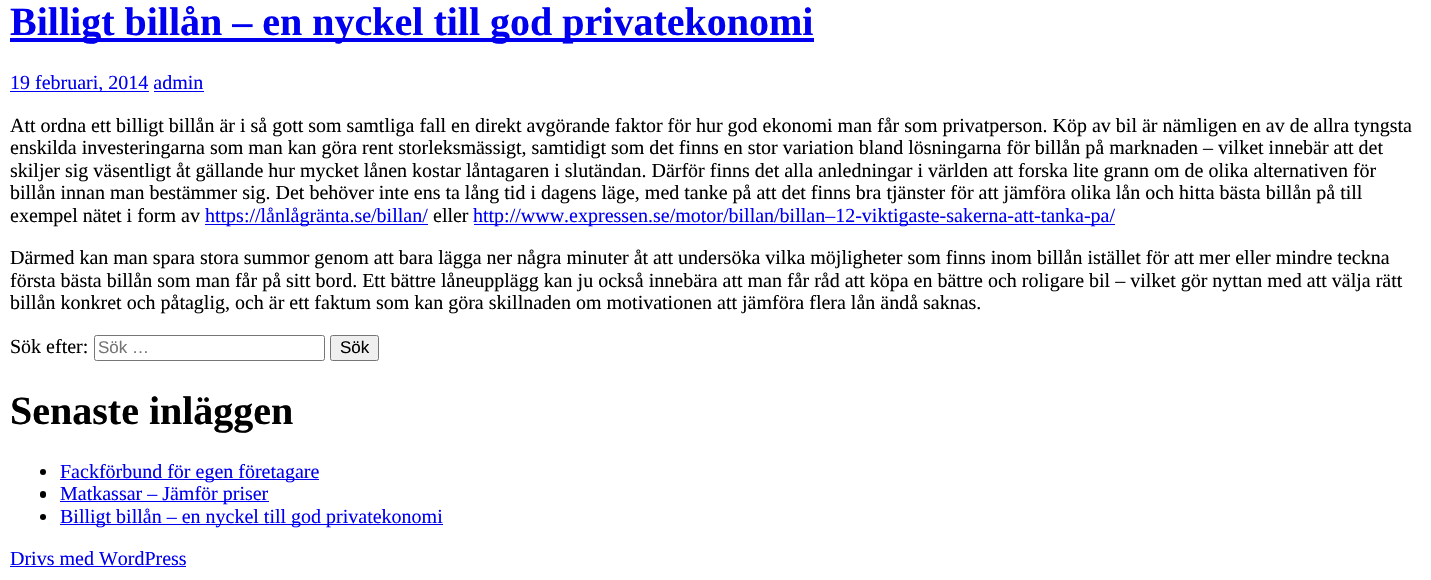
void draw(SkCanvas* canvas) {
	SkPaint fill;
	fill.setAntiAlias(true);
	auto makeFont = [&](const char* family, int weight, float size, bool italic = false) {
		SkFontStyle style(weight, SkFontStyle::kNormal_Width,
			italic ? SkFontStyle::kItalic_Slant : SkFontStyle::kUpright_Slant);
		SkFont result(fontMgr->matchFamilyStyle(family, style), size);
		result.setSubpixel(true);
		return result;
	};
	auto text = [&](const char* s, float x, float y, const SkFont& font) {
		canvas->drawString(s, x, y, font, fill);
	};
	auto box = [&](float l, float t, float r, float b) {
		canvas->drawRect(SkRect::MakeLTRB(l, t, r, b), fill);
	};
	auto roundBox = [&](float l, float t, float r, float b, float radius) {
		canvas->drawRoundRect(SkRect::MakeLTRB(l, t, r, b), radius, radius, fill);
	};
	canvas->clear(0xFFFFFFFF);
	fill.setColor(0xFF0000EE);
	box(10, 38, 814, 42);
	box(10, 91, 149, 92);
	box(154, 91, 204, 92);
	box(205, 224, 428, 225);
	box(474, 224, 1115, 225);
	fill.setStyle(SkPaint::kStroke_Style);
	fill.setStrokeWidth(1);
	fill.setColor(0xFF767676);
	canvas->drawRoundRect(SkRect::MakeLTRB(94.5f, 335.5f, 324.5f, 360.5f), 2, 2, fill);
	fill.setStyle(SkPaint::kFill_Style);
	fill.setColor(0xFFEFEFEF);
	canvas->drawRoundRect(SkRect::MakeLTRB(330.5f, 335.5f, 378.5f, 360.5f), 2, 2, fill);
	fill.setStyle(SkPaint::kStroke_Style);
	fill.setColor(0xFF767676);
	canvas->drawRoundRect(SkRect::MakeLTRB(330.5f, 335.5f, 378.5f, 360.5f), 2, 2, fill);
	fill.setStyle(SkPaint::kFill_Style);
	fill.setColor(0xFF000000);
	canvas->drawCircle(43, 472, 3, fill);
	fill.setColor(0xFF0000EE);
	box(60, 479, 319, 480);
	fill.setColor(0xFF000000);
	roundBox(40, 491, 46, 498, 3);
	fill.setColor(0xFF0000EE);
	box(60, 501, 269, 502);
	fill.setColor(0xFF000000);
	canvas->drawCircle(43, 517, 3, fill);
	fill.setColor(0xFF0000EE);
	box(60, 524, 443, 525);
	box(10, 566, 186, 567);
	auto font1 = makeFont("Liberation Serif", 700, 40);
	text("Billigt billån – en nyckel till god privatekonomi", 10, 35, font1);
	auto font2 = makeFont("Liberation Serif", 400, 20);
	text("19 februari, 2014 admin", 10, 89, font2);
	fill.setColor(0xFF000000);
	text("Att ordna ett billigt billån är i så gott som samtliga fall en direkt avgörande faktor för hur god ekonomi man får som privatperson. Köp av bil är nämligen en av de allra tyngsta", 10, 132, font2);
	text("enskilda investeringarna som man kan göra rent storleksmässigt, samtidigt som det finns en stor variation bland lösningarna för billån på marknaden – vilket innebär att det", 10, 154, font2);
	text("skiljer sig väsentligt åt gällande hur mycket lånen kostar låntagaren i slutändan. Därför finns det alla anledningar i världen att forska lite grann om de olika alternativen för", 10, 177, font2);
	text("billån innan man bestämmer sig. Det behöver inte ens ta lång tid i dagens läge, med tanke på att det finns bra tjänster för att jämföra olika lån och hitta bästa billån på till", 10, 199, font2);
	text("exempel nätet i form av", 10, 222, font2);
	fill.setColor(0xFF0000EE);
	text("https://lånlågränta.se/billan/", 205, 222, font2);
	fill.setColor(0xFF000000);
	text("eller", 433, 222, font2);
	fill.setColor(0xFF0000EE);
	text("http://www.expressen.se/motor/billan/billan–12-viktigaste-sakerna-att-tanka-pa/", 473, 222, font2);
	fill.setColor(0xFF000000);
	text("Därmed kan man spara stora summor genom att bara lägga ner några minuter åt att undersöka vilka möjligheter som finns inom billån istället för att mer eller mindre teckna", 10, 264, font2);
	text("första bästa billån som man får på sitt bord. Ett bättre låneupplägg kan ju också innebära att man får råd att köpa en bättre och roligare bil – vilket gör nyttan med att välja rätt", 10, 287, font2);
	text("billån konkret och påtaglig, och är ett faktum som kan göra skillnaden om motivationen att jämföra flera lån ändå saknas.", 10, 309, font2);
	text("Sök efter:", 10, 353, font2);
	auto font3 = makeFont("Liberation Sans", 400, 17);
	fill.setColor(0xFF757575);
	text("Sök …", 98, 353, font3);
	fill.setColor(0xFF000000);
	text("Sök", 340, 353, font3);
	text("Senaste inläggen", 10, 424, font1);
	fill.setColor(0xFF0000EE);
	text("Fackförbund för egen företagare", 60, 478, font2);
	text("Matkassar – Jämför priser", 60, 500, font2);
	text("Billigt billån – en nyckel till god privatekonomi", 60, 523, font2);
	text("Drivs med WordPress", 10, 565, font2);
}
